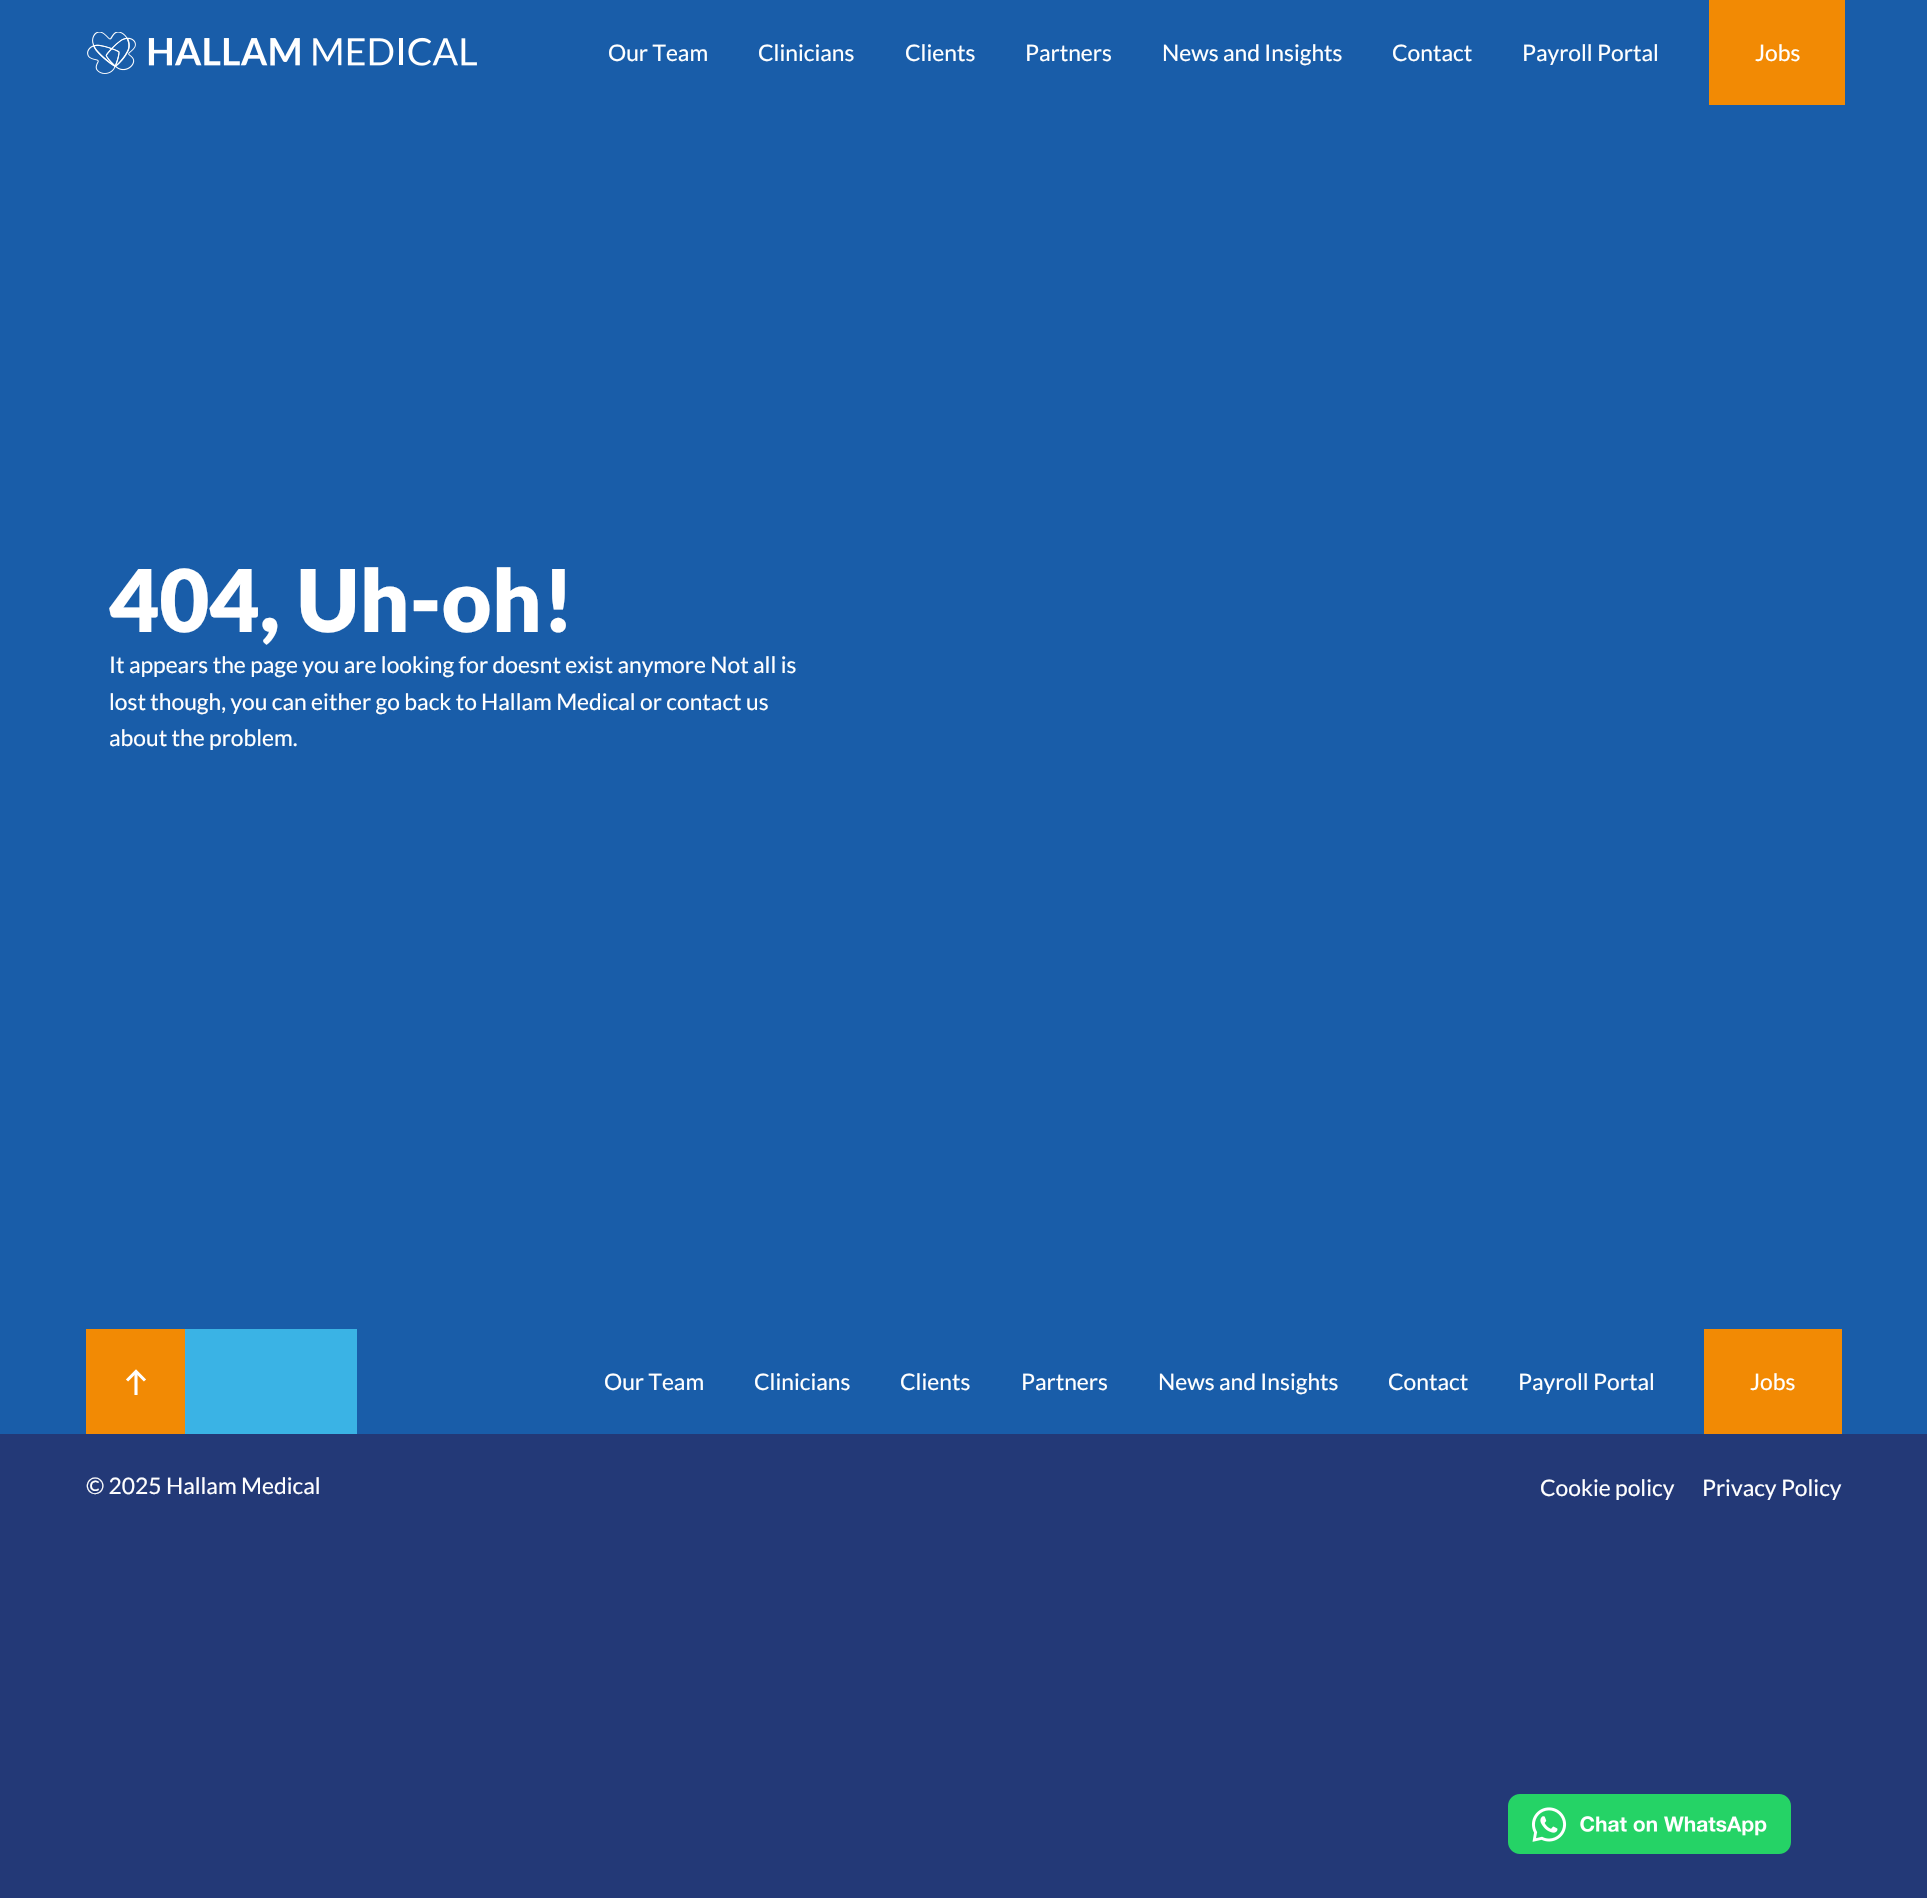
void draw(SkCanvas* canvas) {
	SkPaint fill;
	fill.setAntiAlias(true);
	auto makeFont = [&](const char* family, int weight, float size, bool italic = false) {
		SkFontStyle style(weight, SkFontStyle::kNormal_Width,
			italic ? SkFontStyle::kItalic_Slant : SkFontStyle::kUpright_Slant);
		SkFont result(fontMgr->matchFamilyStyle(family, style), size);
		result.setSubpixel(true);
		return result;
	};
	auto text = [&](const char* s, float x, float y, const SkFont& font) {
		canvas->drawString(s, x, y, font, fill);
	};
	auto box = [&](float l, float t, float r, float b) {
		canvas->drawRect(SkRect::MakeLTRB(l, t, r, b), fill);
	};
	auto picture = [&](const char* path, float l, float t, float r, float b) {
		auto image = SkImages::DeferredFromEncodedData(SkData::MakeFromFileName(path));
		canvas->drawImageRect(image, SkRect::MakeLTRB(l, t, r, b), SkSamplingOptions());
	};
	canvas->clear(0xFF233977);
	fill.setColor(0xFF195DA9);
	box(0, 0, 1927, 1434);
	picture("image0.png", 87, 32, 477, 74);
	fill.setColor(0xFFF28A04);
	box(1709, 0, 1845, 105);
	box(86, 1329, 185, 1434);
	canvas->save();
	canvas->clipRect(SkRect::MakeLTRB(126, 1370, 147, 1395));
	fill.setStyle(SkPaint::kStroke_Style);
	fill.setStrokeWidth(3.1f);
	fill.setColor(0xFFFFFFFF);
	canvas->drawPath(SkPathBuilder().moveTo(136, 1396).lineTo(136, 1372.5f).detach(), fill);
	canvas->restore();
	canvas->drawPath(SkPathBuilder().moveTo(145, 1380.5f).lineTo(136, 1371.5f).lineTo(127, 1380.5f).detach(), fill);
	fill.setStyle(SkPaint::kFill_Style);
	fill.setColor(0xFF3AB3E5);
	box(185, 1329, 357, 1434);
	fill.setColor(0xFFF28A04);
	box(1704, 1329, 1842, 1434);
	picture("image1.png", 1508, 1794, 1791, 1854);
	auto font1 = makeFont("Lato", 400, 22.8f);
	fill.setColor(0xFFFFFFFF);
	text("Our Team", 608, 61, font1);
	text("Clinicians", 758, 61, font1);
	text("Clients", 905, 61, font1);
	text("Partners", 1025, 61, font1);
	text("News and Insights", 1162, 61, font1);
	text("Contact", 1392, 61, font1);
	text("Payroll Portal", 1522, 61, font1);
	text("Jobs", 1755, 61, font1);
	auto font2 = makeFont("Lato", 900, 86.5f);
	text("404, Uh-oh!", 109, 632, font2);
	text("It appears the page you are looking for doesnt exist anymore Not all is", 109, 673, font1);
	text("lost though, you can either go back to", 109, 710, font1);
	text("Hallam Medical or contact us", 481, 710, font1);
	text("about the problem.", 109, 746, font1);
	text("Our Team", 604, 1390, font1);
	text("Clinicians", 754, 1390, font1);
	text("Clients", 900, 1390, font1);
	text("Partners", 1021, 1390, font1);
	text("News and Insights", 1158, 1390, font1);
	text("Contact", 1388, 1390, font1);
	text("Payroll Portal", 1518, 1390, font1);
	text("Jobs", 1750, 1390, font1);
	text("© 2025 Hallam Medical", 86, 1494, font1);
	text("Cookie policy", 1540, 1496, font1);
	text("Privacy Policy", 1702, 1496, font1);
}
